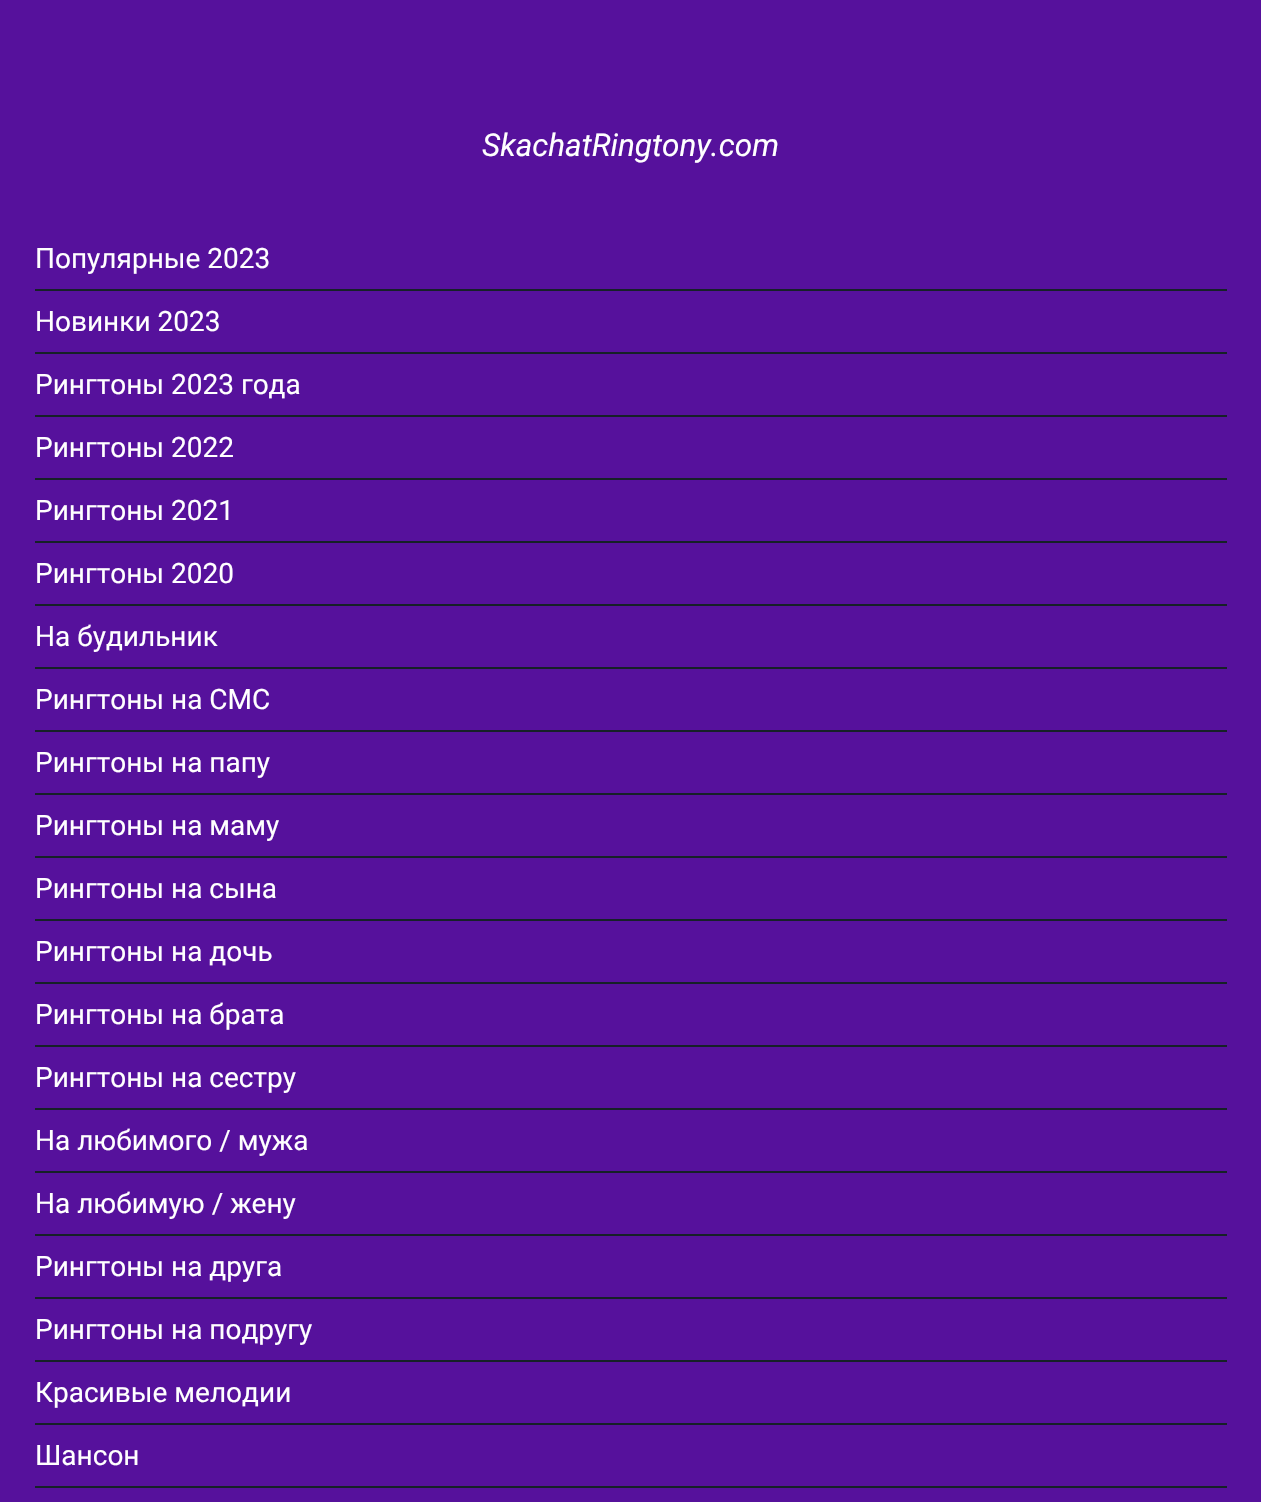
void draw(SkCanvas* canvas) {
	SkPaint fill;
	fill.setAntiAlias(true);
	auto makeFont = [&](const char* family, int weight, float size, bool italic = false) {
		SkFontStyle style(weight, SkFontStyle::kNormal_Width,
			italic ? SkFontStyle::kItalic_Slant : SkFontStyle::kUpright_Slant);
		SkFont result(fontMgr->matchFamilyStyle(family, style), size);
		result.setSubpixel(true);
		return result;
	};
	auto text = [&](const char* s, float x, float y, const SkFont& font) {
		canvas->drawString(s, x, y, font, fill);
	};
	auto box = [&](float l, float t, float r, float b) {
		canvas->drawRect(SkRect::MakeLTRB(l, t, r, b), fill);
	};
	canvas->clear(0xFF56119C);
	fill.setColor(0xFF162128);
	box(35, 289, 1227, 291);
	box(35, 352, 1227, 354);
	box(35, 415, 1227, 417);
	box(35, 478, 1227, 480);
	box(35, 541, 1227, 543);
	box(35, 604, 1227, 606);
	box(35, 667, 1227, 669);
	box(35, 730, 1227, 732);
	box(35, 793, 1227, 795);
	box(35, 856, 1227, 858);
	box(35, 919, 1227, 921);
	box(35, 982, 1227, 984);
	box(35, 1045, 1227, 1047);
	box(35, 1108, 1227, 1110);
	box(35, 1171, 1227, 1173);
	box(35, 1234, 1227, 1236);
	box(35, 1297, 1227, 1299);
	box(35, 1360, 1227, 1362);
	box(35, 1423, 1227, 1425);
	box(35, 1486, 1227, 1488);
	auto font1 = makeFont("Roboto", 400, 31.5f, true);
	fill.setColor(0xFFFFFFFF);
	text("SkachatRingtony.com", 482, 156, font1);
	auto font2 = makeFont("Roboto", 400, 28);
	text("Популярные 2023", 35, 268, font2);
	text("Новинки 2023", 35, 331, font2);
	text("Рингтоны 2023 года", 35, 394, font2);
	text("Рингтоны 2022", 35, 457, font2);
	text("Рингтоны 2021", 35, 520, font2);
	text("Рингтоны 2020", 35, 583, font2);
	text("На будильник", 35, 646, font2);
	text("Рингтоны на СМС", 35, 709, font2);
	text("Рингтоны на папу", 35, 772, font2);
	text("Рингтоны на маму", 35, 835, font2);
	text("Рингтоны на сына", 35, 898, font2);
	text("Рингтоны на дочь", 35, 961, font2);
	text("Рингтоны на брата", 35, 1024, font2);
	text("Рингтоны на сестру", 35, 1087, font2);
	text("На любимого / мужа", 35, 1150, font2);
	text("На любимую / жену", 35, 1213, font2);
	text("Рингтоны на друга", 35, 1276, font2);
	text("Рингтоны на подругу", 35, 1339, font2);
	text("Красивые мелодии", 35, 1402, font2);
	text("Шансон", 35, 1465, font2);
}
